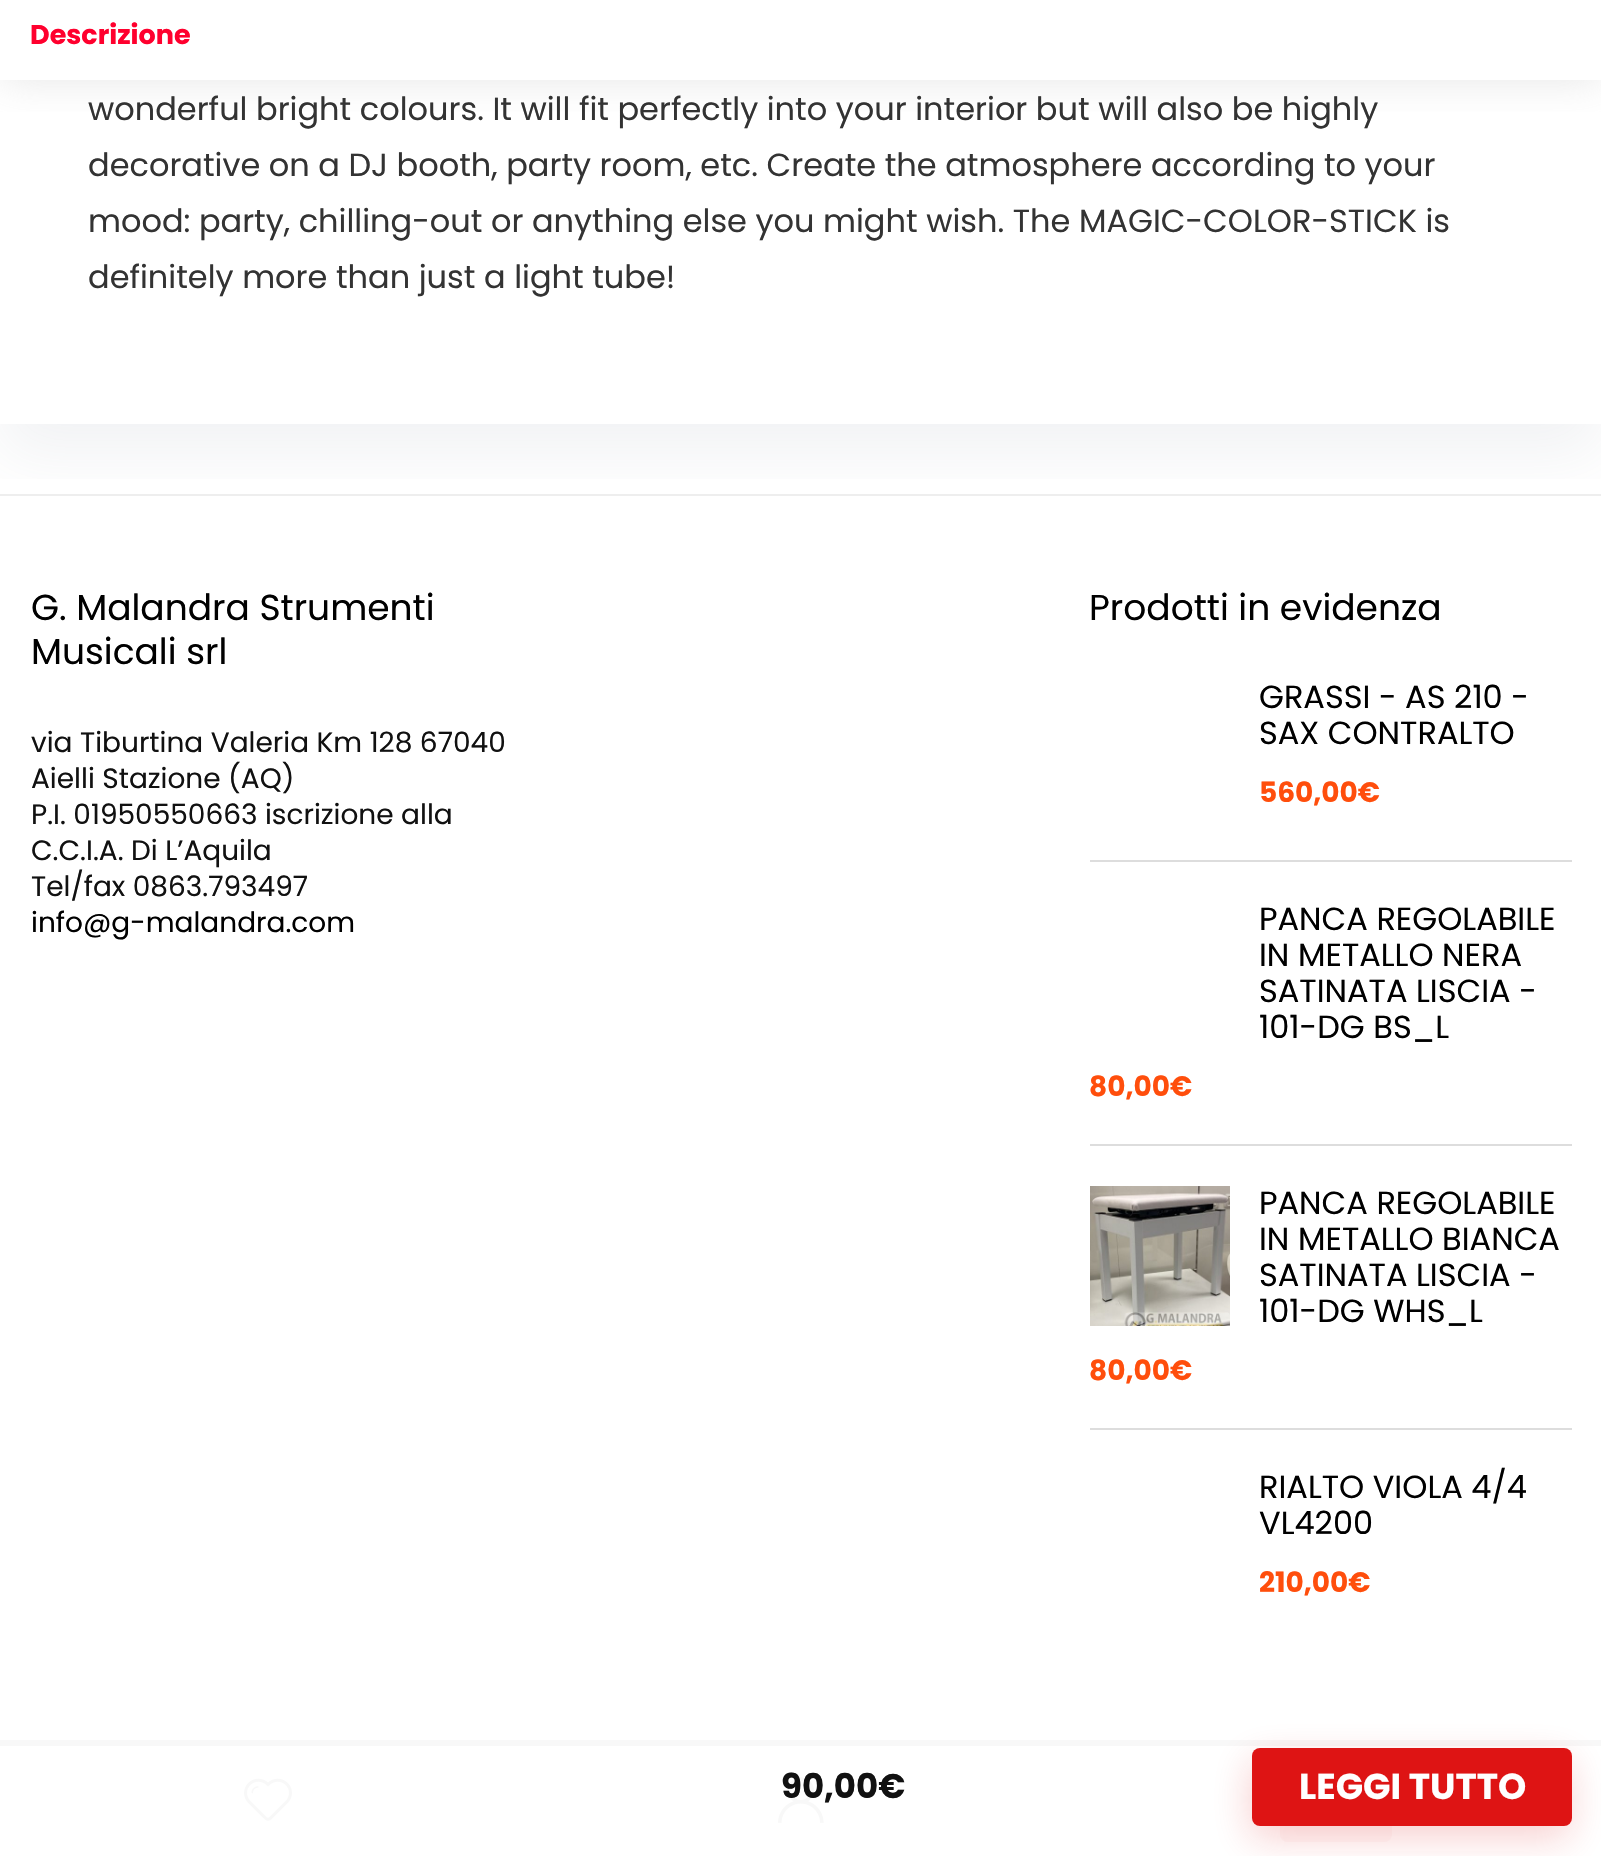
void draw(SkCanvas* canvas) {
	SkPaint fill;
	fill.setAntiAlias(true);
	auto makeFont = [&](const char* family, int weight, float size, bool italic = false) {
		SkFontStyle style(weight, SkFontStyle::kNormal_Width,
			italic ? SkFontStyle::kItalic_Slant : SkFontStyle::kUpright_Slant);
		SkFont result(fontMgr->matchFamilyStyle(family, style), size);
		result.setSubpixel(true);
		return result;
	};
	auto text = [&](const char* s, float x, float y, const SkFont& font) {
		canvas->drawString(s, x, y, font, fill);
	};
	auto box = [&](float l, float t, float r, float b) {
		canvas->drawRect(SkRect::MakeLTRB(l, t, r, b), fill);
	};
	auto roundBox = [&](float l, float t, float r, float b, float radius) {
		canvas->drawRoundRect(SkRect::MakeLTRB(l, t, r, b), radius, radius, fill);
	};
	auto picture = [&](const char* path, float l, float t, float r, float b) {
		auto image = SkImages::DeferredFromEncodedData(SkData::MakeFromFileName(path));
		canvas->drawImageRect(image, SkRect::MakeLTRB(l, t, r, b), SkSamplingOptions());
	};
	canvas->clear(0xFFFFFFFF);
	canvas->save();
	canvas->clipRect(SkRect::MakeLTRB(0, 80, 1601, 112));
	fill.setColor(0x5CBBBBBB);
	fill.setMaskFilter(SkMaskFilter::MakeBlur(kNormal_SkBlurStyle, 20));
	canvas->drawRect(SkRect::MakeLTRB(0, 0, 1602, 80), fill);
	fill.setMaskFilter(nullptr);
	canvas->restore();
	fill.setColor(0xFFEEEEEE);
	box(0, 494, 1601, 496);
	canvas->save();
	canvas->clipRect(SkRect::MakeLTRB(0, 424, 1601, 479));
	fill.setColor(0x1A777B92);
	fill.setMaskFilter(SkMaskFilter::MakeBlur(kNormal_SkBlurStyle, 30));
	canvas->drawRect(SkRect::MakeLTRB(0, 0, 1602, 454), fill);
	fill.setMaskFilter(nullptr);
	canvas->restore();
	fill.setColor(0xFFF8F8F8);
	box(0, 1740, 1601, 1746);
	fill.setColor(0xFFFEF8F8);
	roundBox(1280, 1760, 1392, 1842, 8);
	fill.setColor(0x33DE1414);
	fill.setMaskFilter(SkMaskFilter::MakeBlur(kNormal_SkBlurStyle, 19));
	canvas->drawRoundRect(SkRect::MakeLTRB(1250, 1760, 1570, 1838), 8, 8, fill);
	fill.setMaskFilter(nullptr);
	fill.setColor(0xFFDE1414);
	roundBox(1252, 1748, 1572, 1826, 8);
	fill.setColor(0xFFDDDDDD);
	box(1090, 860, 1572, 862);
	box(1090, 1144, 1572, 1146);
	box(1090, 1428, 1572, 1430);
	picture("image0.png", 1090, 1186, 1230, 1326);
	picture("image1.png", 244, 1778, 292, 1821);
	picture("image2.png", 778, 1777, 824, 1823);
	auto font1 = makeFont("Poppins", 700, 27);
	fill.setColor(0xFFFF002E);
	text("Descrizione", 30, 44, font1);
	auto font2 = makeFont("Poppins", 400, 32);
	fill.setColor(0xFF333333);
	text("wonderful bright colours. It will fit perfectly into your interior but will also be highly", 88, 120, font2);
	text("decorative on a DJ booth, party room, etc. Create the atmosphere according to your", 88, 176, font2);
	text("mood: party, chilling-out or anything else you might wish. The MAGIC-COLOR-STICK is", 88, 232, font2);
	text("definitely more than just a light tube!", 88, 288, font2);
	auto font3 = makeFont("Poppins", 700, 34);
	fill.setColor(0xFF111111);
	text("90,00€", 781, 1798, font3);
	auto font4 = makeFont("Poppins", 700, 36);
	fill.setColor(0xFFFFFFFF);
	text("LEGGI TUTTO", 1299, 1799, font4);
	auto font5 = makeFont("Poppins", 400, 36);
	fill.setColor(0xFF000000);
	text("G. Malandra Strumenti", 31, 620, font5);
	text("Musicali srl", 31, 664, font5);
	auto font6 = makeFont("Poppins", 400, 28);
	fill.setColor(0xFF111111);
	text("via Tiburtina Valeria Km 128 67040", 31, 752, font6);
	text("Aielli Stazione (AQ)", 31, 788, font6);
	text("P.I. 01950550663 iscrizione alla", 31, 824, font6);
	text("C.C.I.A. Di L’Aquila", 31, 860, font6);
	text("Tel/fax 0863.793497", 31, 896, font6);
	fill.setColor(0xFF000000);
	text("info@g-malandra.com", 31, 932, font6);
	text("Prodotti in evidenza", 1089, 620, font5);
	text("GRASSI - AS 210 -", 1259, 708, font2);
	text("SAX CONTRALTO", 1259, 744, font2);
	auto font7 = makeFont("Poppins", 700, 28);
	fill.setColor(0xFFFF4E0C);
	text("560,00€", 1259, 802, font7);
	fill.setColor(0xFF000000);
	text("PANCA REGOLABILE", 1259, 930, font2);
	text("IN METALLO NERA", 1259, 966, font2);
	text("SATINATA LISCIA -", 1259, 1002, font2);
	text("101-DG BS_L", 1259, 1038, font2);
	fill.setColor(0xFFFF4E0C);
	text("80,00€", 1089, 1096, font7);
	fill.setColor(0xFF000000);
	text("PANCA REGOLABILE", 1259, 1214, font2);
	text("IN METALLO BIANCA", 1259, 1250, font2);
	text("SATINATA LISCIA -", 1259, 1286, font2);
	text("101-DG WHS_L", 1259, 1322, font2);
	fill.setColor(0xFFFF4E0C);
	text("80,00€", 1089, 1380, font7);
	fill.setColor(0xFF000000);
	text("RIALTO VIOLA 4/4", 1259, 1498, font2);
	text("VL4200", 1259, 1534, font2);
	fill.setColor(0xFFFF4E0C);
	text("210,00€", 1259, 1592, font7);
}
